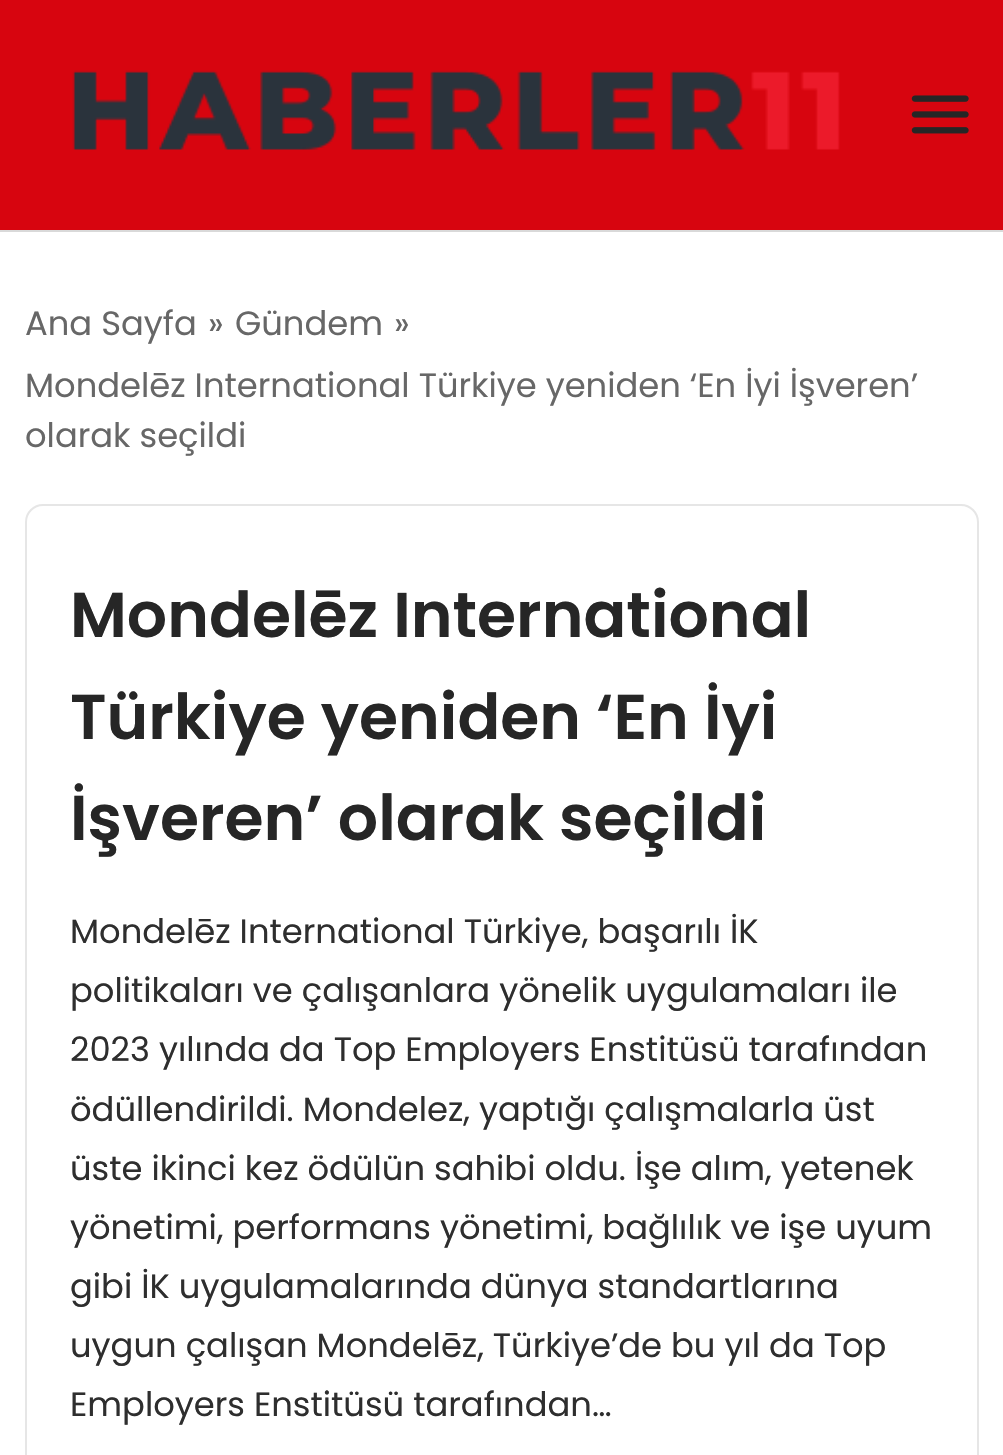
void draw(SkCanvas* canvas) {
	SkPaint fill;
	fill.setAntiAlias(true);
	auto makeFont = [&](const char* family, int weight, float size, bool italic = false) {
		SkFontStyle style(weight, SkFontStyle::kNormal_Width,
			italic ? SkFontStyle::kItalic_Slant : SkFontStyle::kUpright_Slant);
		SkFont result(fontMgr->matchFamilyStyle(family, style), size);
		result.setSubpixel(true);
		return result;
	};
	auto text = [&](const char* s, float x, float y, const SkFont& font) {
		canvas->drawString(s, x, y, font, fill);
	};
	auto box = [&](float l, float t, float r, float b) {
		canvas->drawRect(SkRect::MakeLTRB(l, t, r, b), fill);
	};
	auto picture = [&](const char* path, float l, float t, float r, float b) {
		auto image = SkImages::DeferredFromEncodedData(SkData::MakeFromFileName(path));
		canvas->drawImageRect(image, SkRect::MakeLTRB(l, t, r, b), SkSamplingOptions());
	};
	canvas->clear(0xFFFFFFFF);
	fill.setColor(0xFFD7050F);
	box(0, 0, 1003, 230);
	picture("image0.png", 72, 70, 840, 150);
	picture("image1.png", 911, 95, 969, 134);
	fill.setColor(0xFFD9D9D9);
	box(0, 230, 1003, 232);
	fill.setStyle(SkPaint::kStroke_Style);
	fill.setStrokeWidth(2);
	fill.setColor(0xFFE6E6E6);
	canvas->drawRoundRect(SkRect::MakeLTRB(26, 505, 978, 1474), 17, 17, fill);
	auto font1 = makeFont("Poppins", 400, 33.75f);
	fill.setStyle(SkPaint::kFill_Style);
	fill.setColor(0xFF676767);
	text("Ana Sayfa", 25, 335, font1);
	text("»", 208, 335, font1);
	text("Gündem", 235, 335, font1);
	text("»", 394, 335, font1);
	text("Mondelēz International Türkiye yeniden ‘En İyi İşveren’", 25, 397, font1);
	text("olarak seçildi", 25, 447, font1);
	auto font2 = makeFont("Poppins", 600, 63.25f);
	fill.setColor(0xFF262626);
	text("Mondelēz International", 70, 637, font2);
	text("Türkiye yeniden", 70, 739, font2);
	text("‘En İyi", 596, 739, font2);
	text("İşveren’ olarak seçildi", 70, 840, font2);
	fill.setColor(0xFF2E2E2E);
	text("Mondelēz International Türkiye, başarılı İK", 70, 943, font1);
	text("politikaları ve çalışanlara yönelik uygulamaları ile", 70, 1002, font1);
	text("2023 yılında da Top Employers Enstitüsü tarafından", 70, 1061, font1);
	text("ödüllendirildi. Mondelez, yaptığı çalışmalarla üst", 70, 1121, font1);
	text("üste ikinci kez ödülün sahibi oldu. İşe alım, yetenek", 70, 1180, font1);
	text("yönetimi, performans yönetimi, bağlılık ve işe uyum", 70, 1239, font1);
	text("gibi İK uygulamalarında dünya standartlarına", 70, 1298, font1);
	text("uygun çalışan Mondelēz, Türkiye’de bu yıl da Top", 70, 1357, font1);
	text("Employers Enstitüsü tarafından…", 70, 1416, font1);
}
